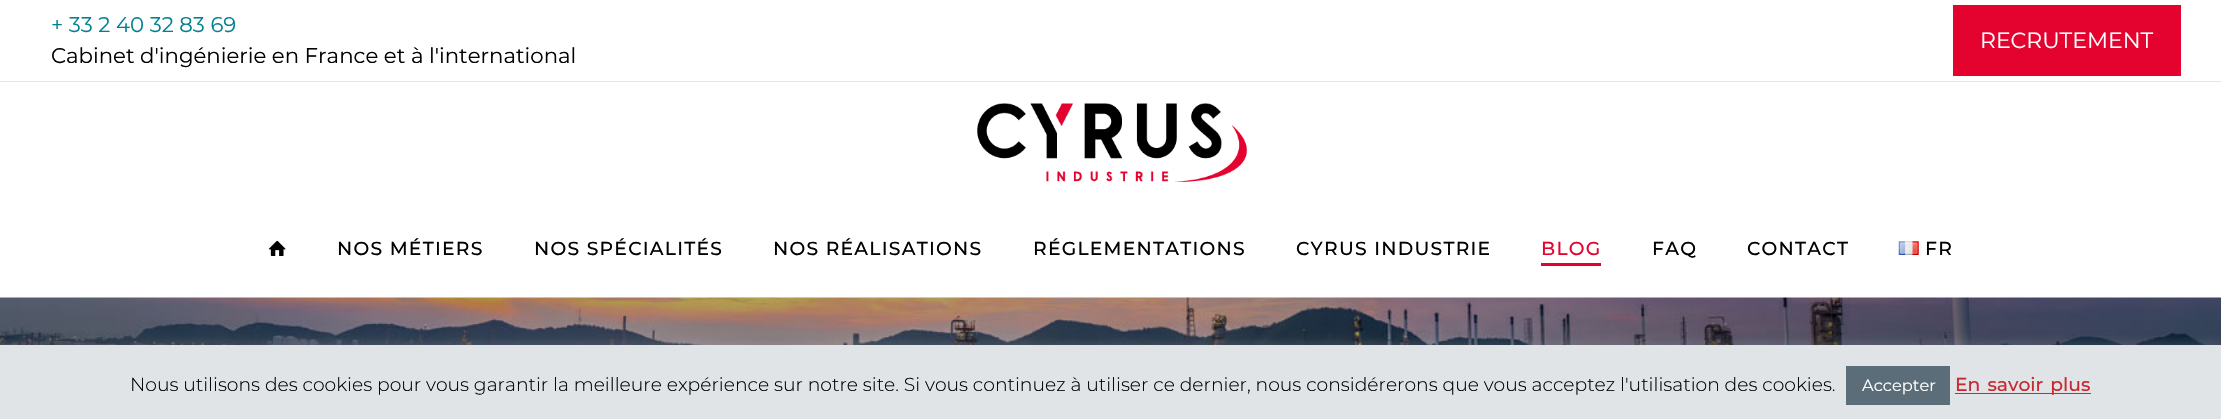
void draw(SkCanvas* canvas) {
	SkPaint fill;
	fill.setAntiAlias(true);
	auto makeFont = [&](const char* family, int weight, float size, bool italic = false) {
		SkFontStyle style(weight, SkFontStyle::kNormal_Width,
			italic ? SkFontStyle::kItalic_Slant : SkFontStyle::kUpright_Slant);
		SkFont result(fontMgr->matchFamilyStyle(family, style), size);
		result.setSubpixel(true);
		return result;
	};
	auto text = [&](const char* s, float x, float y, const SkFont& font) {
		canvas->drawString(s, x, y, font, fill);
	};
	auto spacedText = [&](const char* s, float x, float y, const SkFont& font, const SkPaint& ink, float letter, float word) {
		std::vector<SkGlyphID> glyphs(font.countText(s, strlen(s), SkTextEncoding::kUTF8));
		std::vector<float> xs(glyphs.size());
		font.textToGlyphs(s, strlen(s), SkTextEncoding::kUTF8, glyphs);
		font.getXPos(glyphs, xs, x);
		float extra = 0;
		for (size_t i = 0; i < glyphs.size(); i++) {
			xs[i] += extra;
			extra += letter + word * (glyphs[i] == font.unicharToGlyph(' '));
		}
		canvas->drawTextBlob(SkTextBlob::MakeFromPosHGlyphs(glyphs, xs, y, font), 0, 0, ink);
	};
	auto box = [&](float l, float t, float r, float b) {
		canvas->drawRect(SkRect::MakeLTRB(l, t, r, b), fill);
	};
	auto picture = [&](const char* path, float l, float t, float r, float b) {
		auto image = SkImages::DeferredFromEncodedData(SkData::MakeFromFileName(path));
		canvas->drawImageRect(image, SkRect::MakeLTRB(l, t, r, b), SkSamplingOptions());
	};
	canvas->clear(0xFFFFFFFF);
	fill.setColor(0xFFE6E6E6);
	box(0, 81, 2221, 82);
	fill.setColor(0xFFE4032E);
	box(1953, 5, 2181, 76);
	picture("image0.png", 977, 103, 1248, 182);
	picture("image1.png", 268, 240, 286, 256);
	box(1541, 263, 1601, 266);
	picture("image2.png", 1898, 241, 1919, 255);
	picture("image3.png", 0, 297, 2221, 345);
	fill.setColor(0x4DACABAB);
	fill.setMaskFilter(SkMaskFilter::MakeBlur(kNormal_SkBlurStyle, 6));
	canvas->drawRect(SkRect::MakeLTRB(0, 344, 2221, 419), fill);
	fill.setMaskFilter(nullptr);
	fill.setColor(0xFFE0E4E6);
	box(0, 345, 2221, 419);
	fill.setColor(0xFF5B6D78);
	box(1846, 366, 1950, 405);
	fill.setColor(0xFFC72B32);
	box(1955, 393, 2091, 394);
	auto font1 = makeFont("Montserrat", 400, 21.25f);
	fill.setColor(0xFF008292);
	text("+ 33 2 40 32 83 69", 51, 32, font1);
	fill.setColor(0xFF010101);
	text("Cabinet d'ingénierie en France et à l'international", 51, 63, font1);
	auto font2 = makeFont("Montserrat", 400, 22);
	fill.setColor(0xFFFFFFFF);
	text("RECRUTEMENT", 1980, 48, font2);
	auto font3 = makeFont("Montserrat", 500, 18.75f);
	fill.setColor(0xFF010101);
	spacedText("NOS MÉTIERS", 337, 255, font3, fill, 1.25f, 0);
	spacedText("NOS SPÉCIALITÉS", 534, 255, font3, fill, 1.25f, 0);
	spacedText("NOS RÉALISATIONS", 773, 255, font3, fill, 1.25f, 0);
	spacedText("RÉGLEMENTATIONS", 1033, 255, font3, fill, 1.25f, 0);
	spacedText("CYRUS INDUSTRIE", 1296, 255, font3, fill, 1.25f, 0);
	fill.setColor(0xFFE4032E);
	spacedText("BLOG", 1541, 255, font3, fill, 1.25f, 0);
	fill.setColor(0xFF010101);
	spacedText("FAQ", 1652, 255, font3, fill, 1.25f, 0);
	spacedText("CONTACT", 1747, 255, font3, fill, 1.25f, 0);
	spacedText("FR", 1925, 255, font3, fill, 1.25f, 0);
	auto font4 = makeFont("Montserrat", 300, 18.75f);
	text("Nous utilisons des cookies pour vous garantir la meilleure expérience sur notre site. Si vous continuez à utiliser ce dernier, nous considérerons que vous acceptez l'utilisation des cookies.", 130, 391, font4);
	auto font5 = makeFont("Montserrat", 400, 16.25f);
	fill.setColor(0xFFFFFFFF);
	text("Accepter", 1862, 391, font5);
	fill.setColor(0xFFC72B32);
	spacedText("En savoir plus", 1955, 391, font3, fill, 0, 2);
}
